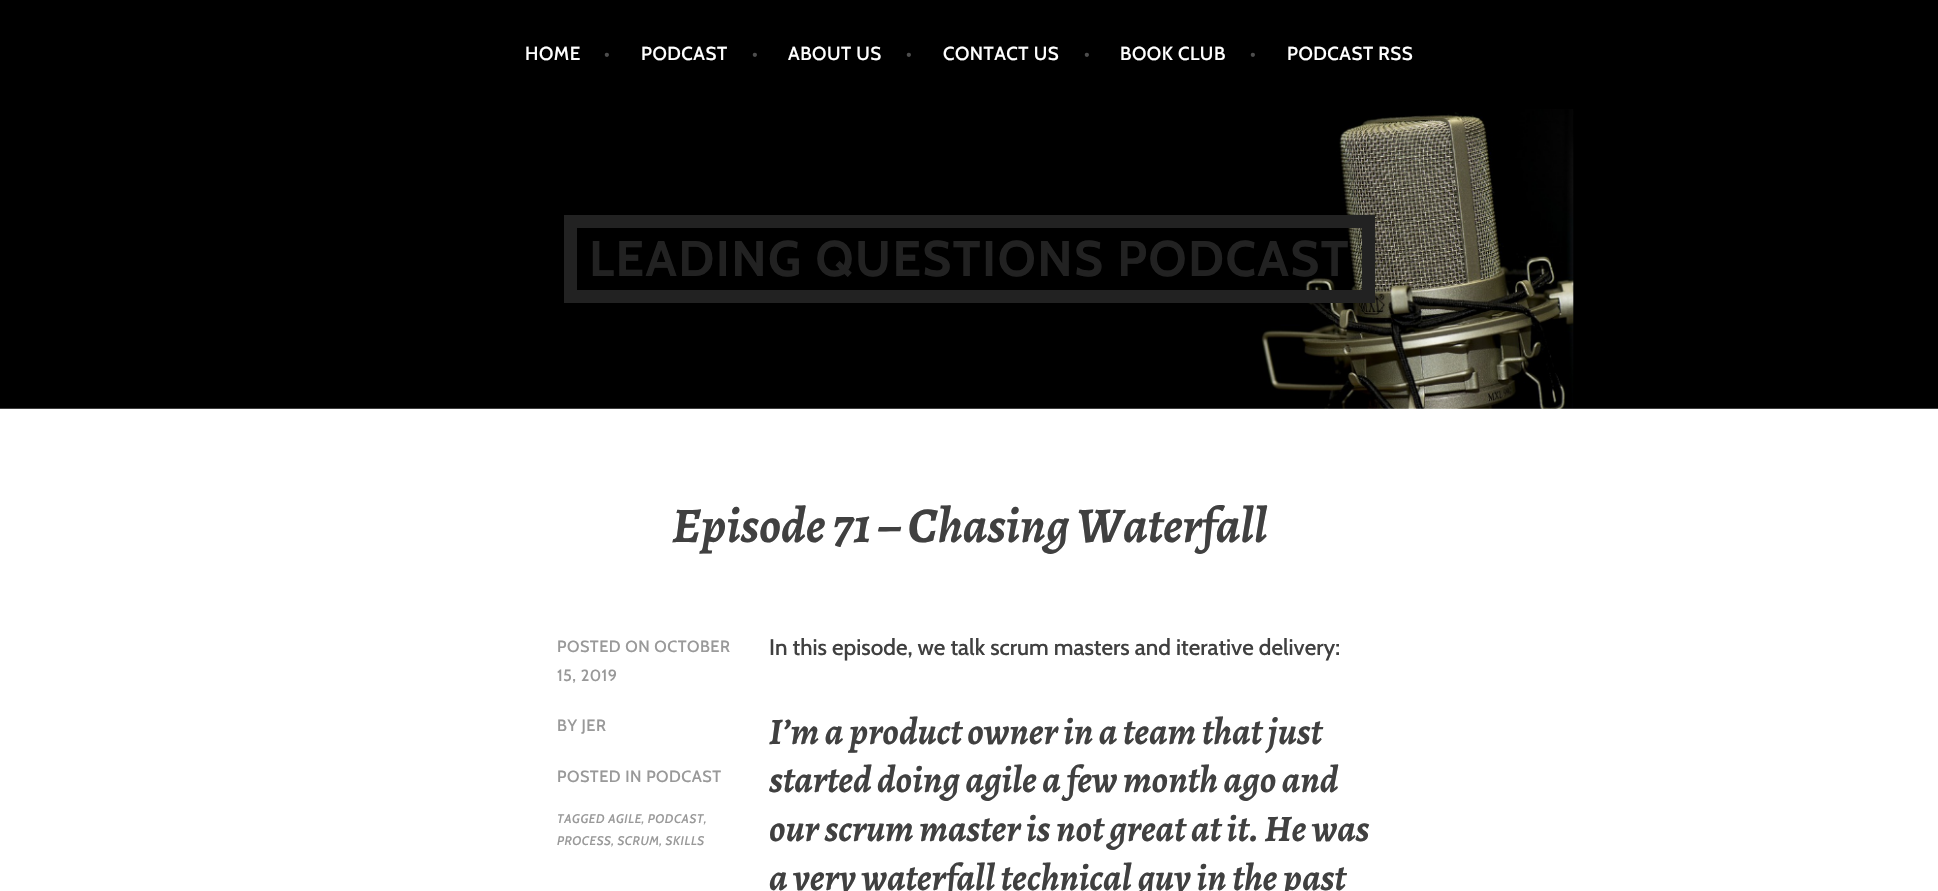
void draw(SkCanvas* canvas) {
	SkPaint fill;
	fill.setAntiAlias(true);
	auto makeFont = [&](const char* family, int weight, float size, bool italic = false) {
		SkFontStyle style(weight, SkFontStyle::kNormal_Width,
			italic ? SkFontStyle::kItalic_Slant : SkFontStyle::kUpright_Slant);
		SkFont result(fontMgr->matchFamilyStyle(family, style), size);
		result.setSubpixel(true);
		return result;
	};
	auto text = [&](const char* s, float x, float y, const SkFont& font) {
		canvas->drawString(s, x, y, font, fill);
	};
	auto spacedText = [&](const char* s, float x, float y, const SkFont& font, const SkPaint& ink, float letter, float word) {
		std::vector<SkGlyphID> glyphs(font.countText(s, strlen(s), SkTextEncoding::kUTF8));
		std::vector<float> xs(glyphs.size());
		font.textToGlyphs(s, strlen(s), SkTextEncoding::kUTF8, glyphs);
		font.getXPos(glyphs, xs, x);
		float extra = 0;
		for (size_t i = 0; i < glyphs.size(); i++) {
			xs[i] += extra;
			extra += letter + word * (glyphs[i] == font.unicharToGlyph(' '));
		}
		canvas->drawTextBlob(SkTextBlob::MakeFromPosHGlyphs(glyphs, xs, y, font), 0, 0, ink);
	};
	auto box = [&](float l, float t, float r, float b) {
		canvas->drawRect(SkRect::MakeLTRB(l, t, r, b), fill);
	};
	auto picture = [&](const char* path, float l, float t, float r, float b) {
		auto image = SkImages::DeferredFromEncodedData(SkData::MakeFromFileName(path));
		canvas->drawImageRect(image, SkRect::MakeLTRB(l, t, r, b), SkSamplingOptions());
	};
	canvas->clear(0xFFFFFFFF);
	fill.setColor(0xFF000000);
	box(0, 0, 1938, 109);
	picture("image0.png", 0, 109, 1938, 409);
	fill.setStyle(SkPaint::kStroke_Style);
	fill.setStrokeWidth(13);
	fill.setColor(0xFF222222);
	canvas->drawRect(SkRect::MakeLTRB(570.5f, 221.5f, 1368.5f, 296.5f), fill);
	auto font1 = makeFont("Cabin", 500, 18.75f);
	fill.setStyle(SkPaint::kFill_Style);
	fill.setColor(0xFFFFFFFF);
	spacedText("HOME", 525, 60, font1, fill, 0.5f, 0);
	fill.setColor(0xFF4D4D4D);
	spacedText("•", 604, 60, font1, fill, 0.5f, 0);
	fill.setColor(0xFFFFFFFF);
	spacedText("PODCAST", 641, 60, font1, fill, 0.5f, 0);
	fill.setColor(0xFF4D4D4D);
	spacedText("•", 752, 60, font1, fill, 0.5f, 0);
	fill.setColor(0xFFFFFFFF);
	spacedText("ABOUT US", 788, 60, font1, fill, 0.5f, 0);
	fill.setColor(0xFF4D4D4D);
	spacedText("•", 906, 60, font1, fill, 0.5f, 0);
	fill.setColor(0xFFFFFFFF);
	spacedText("CONTACT US", 943, 60, font1, fill, 0.5f, 0);
	fill.setColor(0xFF4D4D4D);
	spacedText("•", 1084, 60, font1, fill, 0.5f, 0);
	fill.setColor(0xFFFFFFFF);
	spacedText("BOOK CLUB", 1120, 60, font1, fill, 0.5f, 0);
	fill.setColor(0xFF4D4D4D);
	spacedText("•", 1250, 60, font1, fill, 0.5f, 0);
	fill.setColor(0xFFFFFFFF);
	spacedText("PODCAST RSS", 1287, 60, font1, fill, 0.5f, 0);
	auto font2 = makeFont("Cabin", 700, 50);
	fill.setColor(0xFF222222);
	spacedText("LEADING QUESTIONS PODCAST", 589, 276, font2, fill, 1.5f, 0);
	auto font3 = makeFont("Alegreya", 700, 50, true);
	fill.setColor(0xFF404040);
	text("Episode 71 – Chasing Waterfall", 672, 542, font3);
	auto font4 = makeFont("Cabin", 500, 16.25f);
	fill.setColor(0xFF999999);
	spacedText("POSTED ON OCTOBER", 557, 652, font4, fill, 0.5f, 0);
	spacedText("15, 2019", 557, 681, font4, fill, 0.5f, 0);
	spacedText("BY JER", 557, 731, font4, fill, 0.5f, 0);
	spacedText("POSTED IN PODCAST", 557, 782, font4, fill, 0.5f, 0);
	auto font5 = makeFont("Cabin", 500, 12.5f, true);
	spacedText("TAGGED AGILE, PODCAST,", 557, 823, font5, fill, 0.5f, 0);
	spacedText("PROCESS, SCRUM, SKILLS", 557, 845, font5, fill, 0.5f, 0);
	auto font6 = makeFont("Cabin", 500, 22.5f);
	fill.setColor(0xFF404040);
	text("In this episode, we talk scrum masters and iterative delivery:", 769, 655, font6);
	auto font7 = makeFont("Alegreya", 700, 37.5f, true);
	text("I’m a product owner in a team that just", 769, 744, font7);
	text("started doing agile a few month ago and", 769, 792, font7);
	text("our scrum master is not great at it. He was", 769, 841, font7);
	text("a very waterfall technical guy in the past", 769, 890, font7);
}
